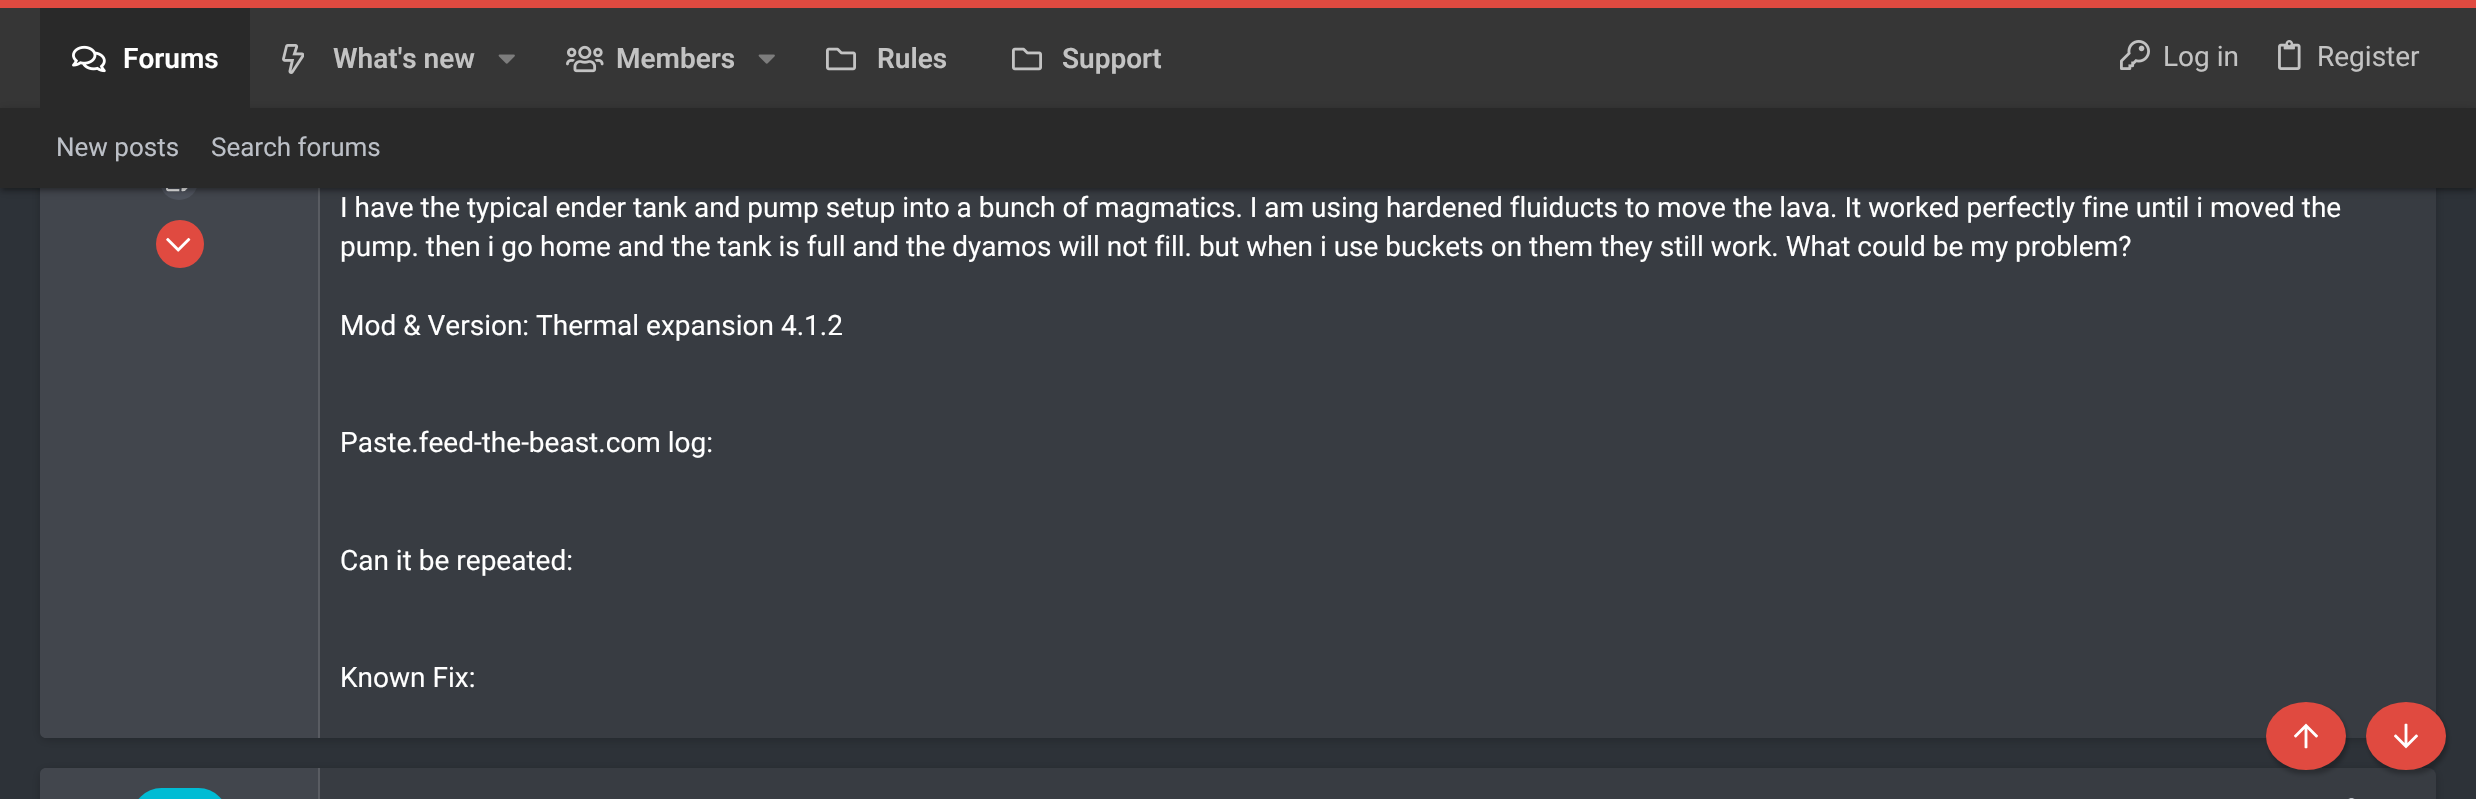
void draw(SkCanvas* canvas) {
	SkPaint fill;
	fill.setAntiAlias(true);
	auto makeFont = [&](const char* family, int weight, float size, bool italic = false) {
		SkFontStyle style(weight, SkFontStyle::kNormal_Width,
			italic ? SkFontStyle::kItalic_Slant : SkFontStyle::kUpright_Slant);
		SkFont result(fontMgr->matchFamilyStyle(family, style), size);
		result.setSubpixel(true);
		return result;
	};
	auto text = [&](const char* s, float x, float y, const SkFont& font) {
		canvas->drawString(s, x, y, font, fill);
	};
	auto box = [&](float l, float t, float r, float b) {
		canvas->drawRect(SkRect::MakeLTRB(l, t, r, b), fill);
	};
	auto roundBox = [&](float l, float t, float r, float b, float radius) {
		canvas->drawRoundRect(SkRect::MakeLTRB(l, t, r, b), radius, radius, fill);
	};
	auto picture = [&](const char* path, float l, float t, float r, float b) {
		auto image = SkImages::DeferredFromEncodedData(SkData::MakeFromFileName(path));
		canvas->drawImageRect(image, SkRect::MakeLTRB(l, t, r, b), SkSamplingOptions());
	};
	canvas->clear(0xFF2D3238);
	fill.setColor(0x33000000);
	fill.setMaskFilter(SkMaskFilter::MakeBlur(kNormal_SkBlurStyle, 5));
	canvas->drawRoundRect(SkRect::MakeLTRB(40, -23, 2436, 740), 8, 8, fill);
	fill.setMaskFilter(nullptr);
	fill.setColor(0xFF383C42);
	roundBox(40, -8, 2436, 738, 8);
	fill.setColor(0xFF42464D);
	canvas->drawPath(SkPathBuilder().moveTo(46, -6).lineTo(320, -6).lineTo(320, 738).lineTo(46, 738).cubicTo(42.5f, 738, 40, 735.5f, 40, 732).lineTo(40, 0).cubicTo(40, -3.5f, 42.5f, -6, 46, -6).close().detach(), fill);
	fill.setColor(0xFF363636);
	box(0, 8, 2476, 108);
	fill.setColor(0xFFE04A40);
	box(0, 0, 2476, 8);
	fill.setColor(0xFF595C62);
	box(318, 188, 320, 738);
	fill.setColor(0xFF4F545E);
	canvas->drawCircle(179, 181, 19, fill);
	picture("image7.png", 166, 188, 188, 192);
	fill.setColor(0x33000000);
	fill.setMaskFilter(SkMaskFilter::MakeBlur(kNormal_SkBlurStyle, 5));
	canvas->drawRect(SkRect::MakeLTRB(0, 110, 2476, 190), fill);
	fill.setMaskFilter(nullptr);
	fill.setColor(0x24000000);
	fill.setMaskFilter(SkMaskFilter::MakeBlur(kNormal_SkBlurStyle, 2));
	canvas->drawRect(SkRect::MakeLTRB(0, 112, 2476, 192), fill);
	fill.setMaskFilter(nullptr);
	fill.setColor(0xFF292929);
	box(40, 8, 250, 108);
	picture("image0.png", 72, 45, 106, 73);
	picture("image1.png", 282, 44, 304, 74);
	picture("image2.png", 498, 54, 515, 64);
	picture("image3.png", 566, 45, 604, 73);
	picture("image2.png", 758, 54, 775, 64);
	picture("image4.png", 826, 47, 856, 71);
	picture("image4.png", 1012, 47, 1042, 71);
	picture("image5.png", 2120, 40, 2150, 70);
	picture("image6.png", 2278, 40, 2301, 70);
	fill.setColor(0x1F000000);
	fill.setMaskFilter(SkMaskFilter::MakeBlur(kNormal_SkBlurStyle, 1));
	canvas->drawRect(SkRect::MakeLTRB(4, 118, 2472, 190), fill);
	fill.setMaskFilter(nullptr);
	fill.setColor(0xFF292929);
	box(0, 108, 2476, 188);
	fill.setColor(0xFFE04A40);
	canvas->drawCircle(180, 244, 24, fill);
	picture("image8.png", 166, 237, 191, 252);
	fill.setColor(0x33000000);
	fill.setMaskFilter(SkMaskFilter::MakeBlur(kNormal_SkBlurStyle, 5));
	canvas->drawRoundRect(SkRect::MakeLTRB(40, 770, 2436, 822), 8, 8, fill);
	fill.setMaskFilter(nullptr);
	fill.setColor(0xFF383C42);
	roundBox(40, 768, 2436, 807, 8);
	fill.setColor(0xFF42464D);
	canvas->drawPath(SkPathBuilder().moveTo(46, 768).lineTo(320, 768).lineTo(320, 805).lineTo(46, 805).cubicTo(42.5f, 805, 40, 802.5f, 40, 799).lineTo(40, 774).cubicTo(40, 770.5f, 42.5f, 768, 46, 768).close().detach(), fill);
	fill.setColor(0xFF595C62);
	box(318, 768, 320, 799);
	fill.setColor(0xFF00BCD4);
	roundBox(132, 788, 228, 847, 48);
	picture("image9.png", 2348, 798, 2355, 799);
	fill.setColor(0x40000000);
	fill.setMaskFilter(SkMaskFilter::MakeBlur(kNormal_SkBlurStyle, 2));
	canvas->drawRoundRect(SkRect::MakeLTRB(2268, 706, 2348, 774), 34, 34, fill);
	fill.setMaskFilter(nullptr);
	fill.setColor(0xFFE04A40);
	canvas->drawOval(SkRect::MakeLTRB(2266, 702, 2346, 770), fill);
	picture("image10.png", 2294, 723, 2318, 749);
	fill.setColor(0x40000000);
	fill.setMaskFilter(SkMaskFilter::MakeBlur(kNormal_SkBlurStyle, 2));
	canvas->drawRoundRect(SkRect::MakeLTRB(2368, 706, 2448, 774), 34, 34, fill);
	fill.setMaskFilter(nullptr);
	fill.setColor(0xFFE04A40);
	canvas->drawOval(SkRect::MakeLTRB(2366, 702, 2446, 770), fill);
	picture("image11.png", 2394, 723, 2418, 749);
	auto font1 = makeFont("Roboto", 600, 28);
	fill.setColor(0xFFFFFFFF);
	text("Forums", 123, 68, font1);
	fill.setColor(0xFFC3C3C3);
	text("What's new", 333, 68, font1);
	text("Members", 616, 68, font1);
	text("Rules", 877, 68, font1);
	text("Support", 1062, 68, font1);
	auto font2 = makeFont("Roboto", 400, 28);
	text("Log in", 2163, 66, font2);
	text("Register", 2317, 66, font2);
	auto font3 = makeFont("Roboto", 400, 26);
	fill.setColor(0xFFBCC0C7);
	text("New posts", 56, 156, font3);
	text("Search forums", 211, 156, font3);
	fill.setColor(0xFFFFFFFF);
	text("I have the typical ender tank and pump setup into a bunch of magmatics. I am using hardened fluiducts to move the lava. It worked perfectly fine until i moved the", 340, 217, font2);
	text("pump. then i go home and the tank is full and the dyamos will not fill. but when i use buckets on them they still work. What could be my problem?", 340, 256, font2);
	text("Mod & Version: Thermal expansion 4.1.2", 340, 335, font2);
	text("Paste.feed-the-beast.com log:", 340, 452, font2);
	text("Can it be repeated:", 340, 570, font2);
	text("Known Fix:", 340, 687, font2);
}
